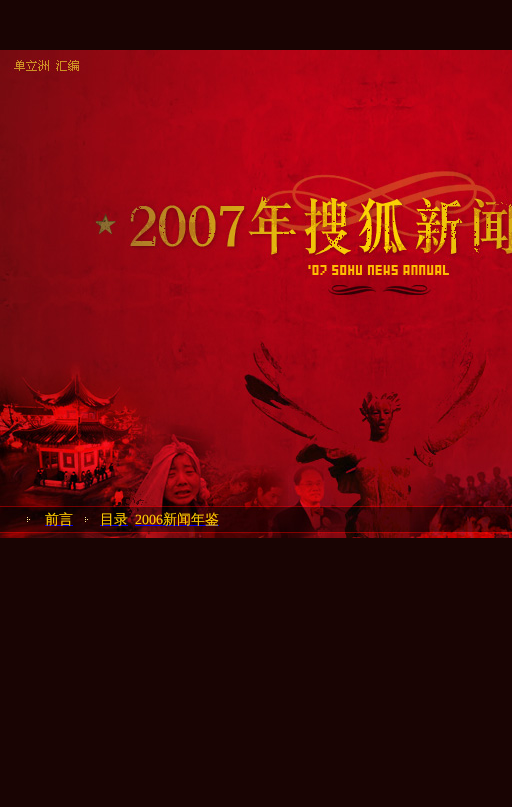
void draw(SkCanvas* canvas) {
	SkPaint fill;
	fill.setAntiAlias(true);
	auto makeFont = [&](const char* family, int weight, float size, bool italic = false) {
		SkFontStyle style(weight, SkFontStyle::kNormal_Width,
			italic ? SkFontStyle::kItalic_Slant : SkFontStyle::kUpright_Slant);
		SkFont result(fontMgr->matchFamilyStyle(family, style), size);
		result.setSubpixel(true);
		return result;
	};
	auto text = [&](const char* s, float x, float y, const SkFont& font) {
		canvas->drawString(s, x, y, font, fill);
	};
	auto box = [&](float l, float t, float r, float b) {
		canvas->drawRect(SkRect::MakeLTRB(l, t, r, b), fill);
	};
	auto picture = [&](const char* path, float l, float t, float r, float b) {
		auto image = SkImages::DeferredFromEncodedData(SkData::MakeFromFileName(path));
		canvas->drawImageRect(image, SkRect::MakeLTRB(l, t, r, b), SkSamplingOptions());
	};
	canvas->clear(0xFF190403);
	picture("image0.png", 0, 50, 380, 132);
	picture("image1.png", 380, 50, 512, 132);
	picture("image2.png", 0, 132, 380, 304);
	picture("image3.png", 380, 132, 512, 304);
	picture("image4.png", 0, 304, 380, 418);
	picture("image5.png", 380, 304, 512, 418);
	picture("image6.png", 0, 418, 380, 506);
	picture("image7.png", 380, 418, 512, 506);
	picture("image8.png", 0, 506, 512, 533);
	picture("image9.png", 26, 516, 31, 523);
	fill.setColor(0xFF0000EE);
	box(45, 525, 73, 526);
	picture("image9.png", 84, 516, 89, 523);
	box(100, 525, 128, 526);
	box(135, 525, 219, 526);
	picture("image10.png", 0, 533, 512, 538);
	auto font1 = makeFont("WenQuanYi Zen Hei", 500, 14);
	fill.setColor(0xFFFFCC00);
	text("前言", 45, 524, font1);
	text("目录", 100, 524, font1);
	auto font2 = makeFont("Liberation Serif", 400, 14);
	text("2006", 135, 524, font2);
	text("新闻年鉴", 163, 524, font1);
}
